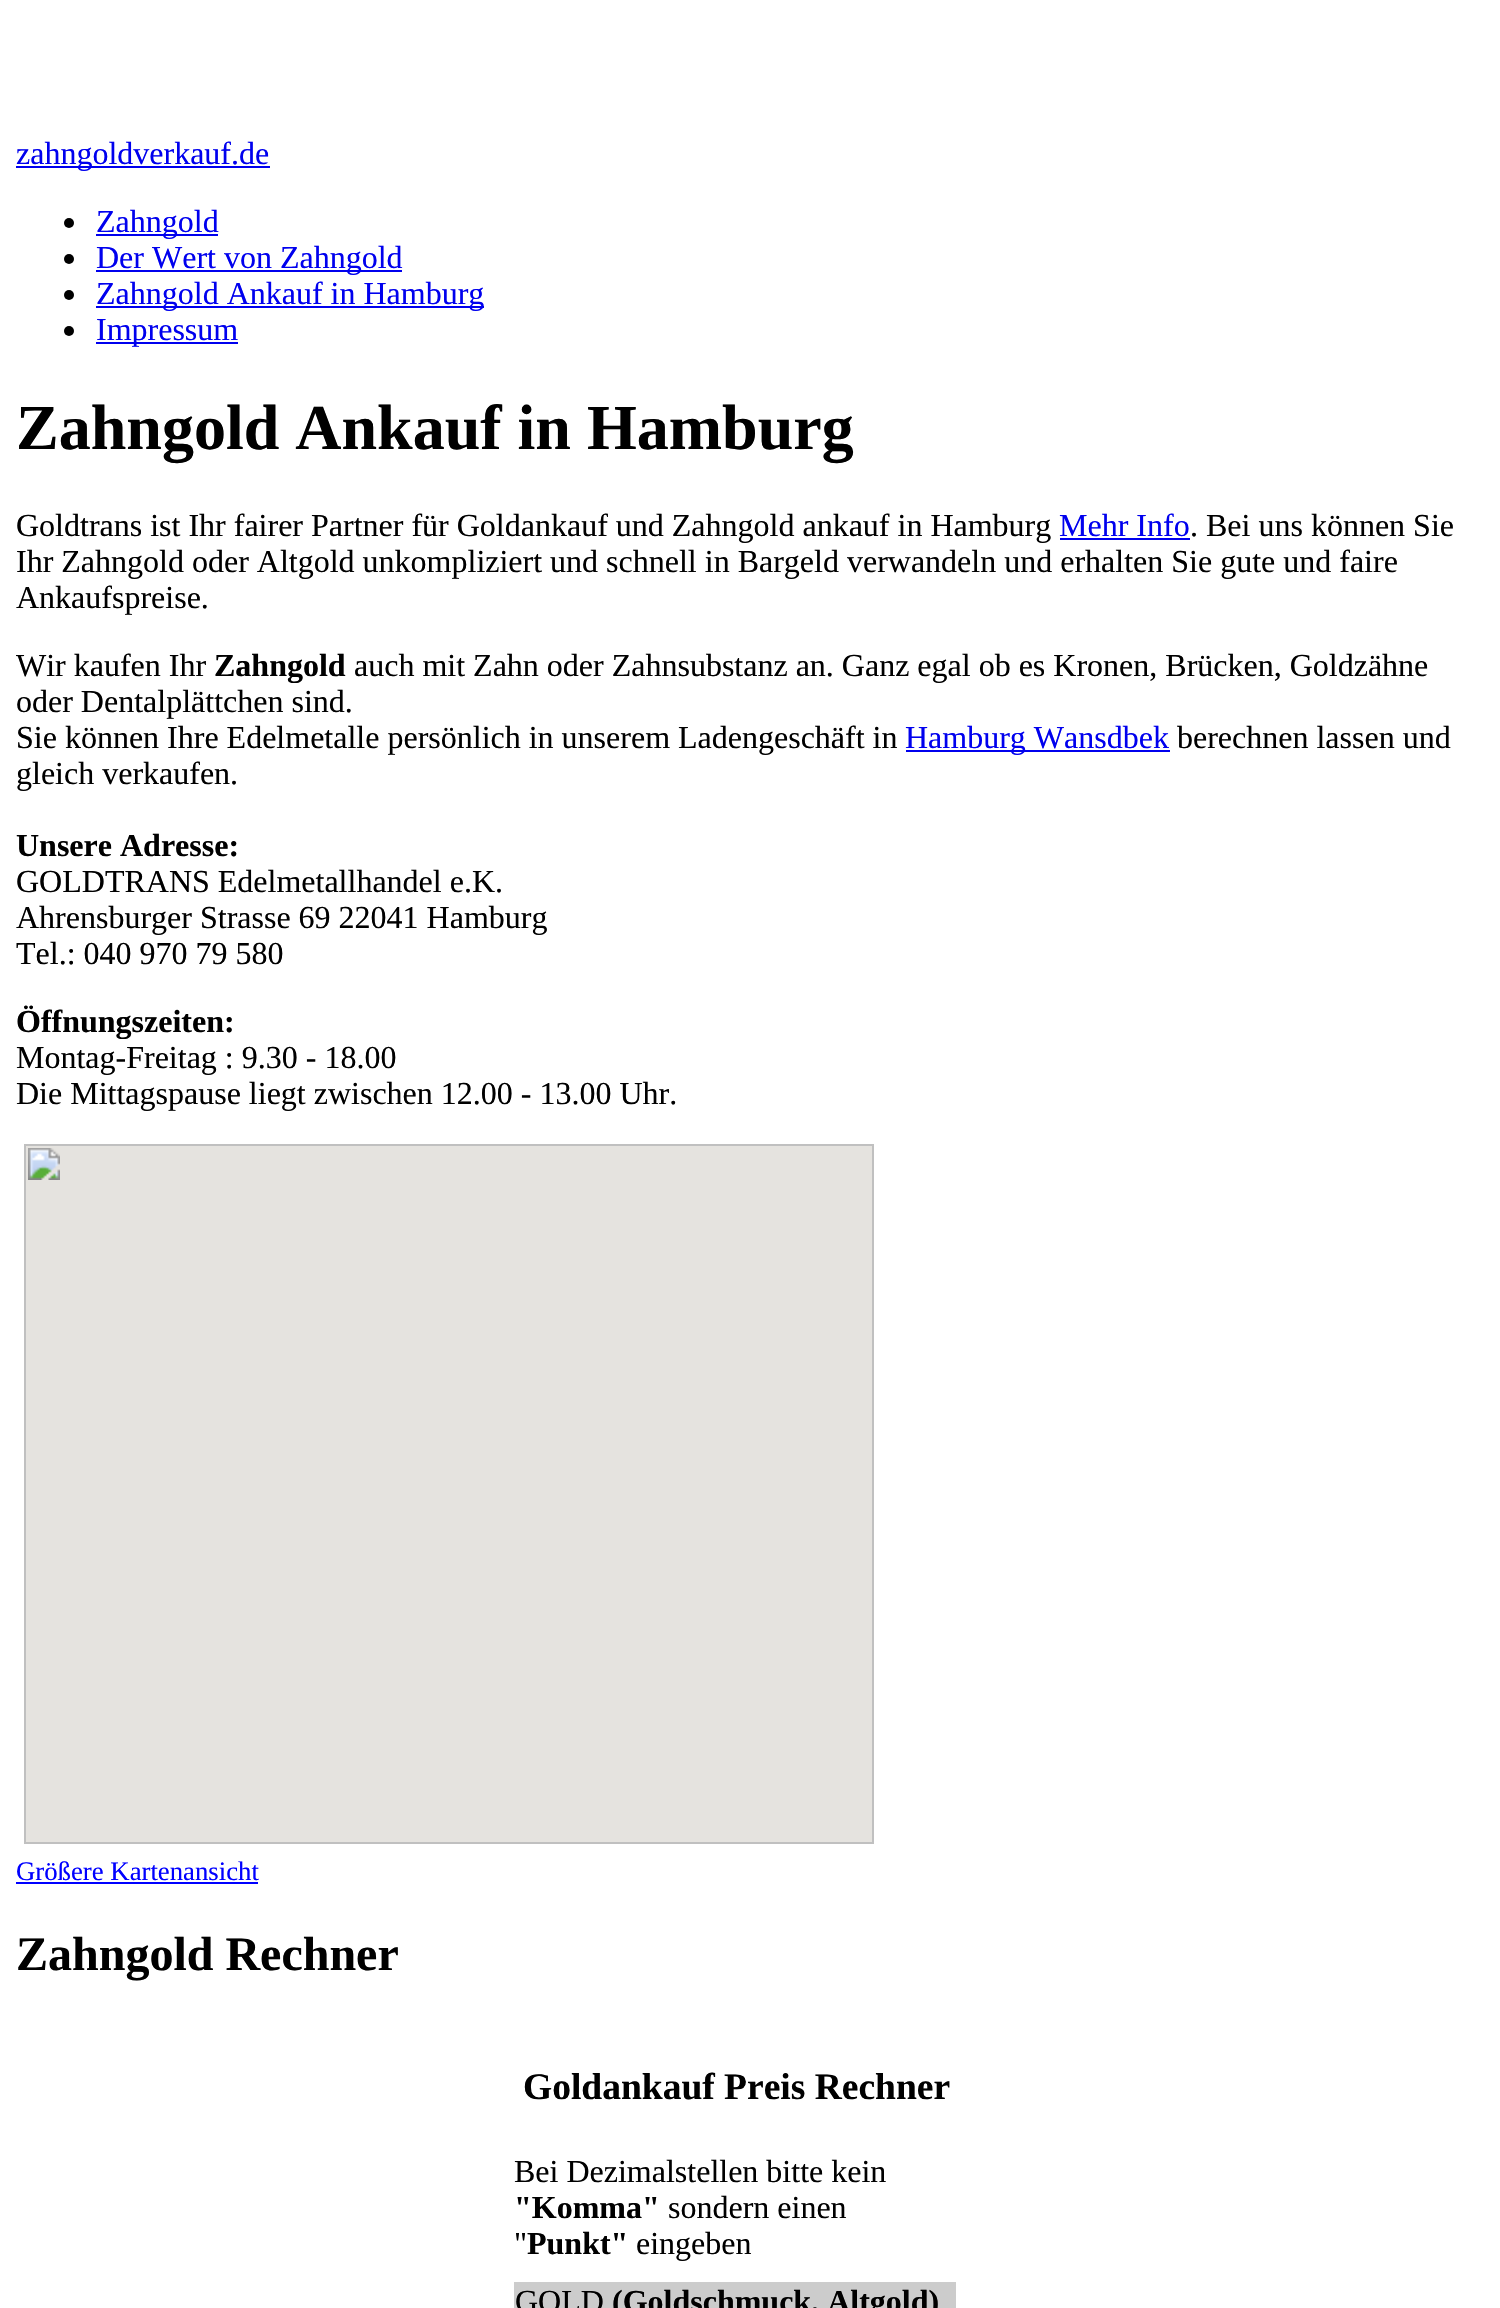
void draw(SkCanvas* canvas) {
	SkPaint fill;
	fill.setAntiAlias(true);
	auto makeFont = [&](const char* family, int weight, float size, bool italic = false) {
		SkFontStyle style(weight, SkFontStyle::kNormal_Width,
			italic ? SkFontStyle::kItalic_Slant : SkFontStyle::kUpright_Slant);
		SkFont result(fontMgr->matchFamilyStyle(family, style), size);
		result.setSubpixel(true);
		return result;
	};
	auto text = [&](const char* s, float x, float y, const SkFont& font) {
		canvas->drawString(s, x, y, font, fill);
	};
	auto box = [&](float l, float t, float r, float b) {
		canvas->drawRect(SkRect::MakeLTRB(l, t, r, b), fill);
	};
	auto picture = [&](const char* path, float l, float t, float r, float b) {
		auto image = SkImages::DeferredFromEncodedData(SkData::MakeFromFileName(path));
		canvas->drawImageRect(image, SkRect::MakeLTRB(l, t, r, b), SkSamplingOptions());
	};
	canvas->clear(0xFFFFFFFF);
	fill.setColor(0xFF0000EE);
	box(16, 166, 270, 168);
	fill.setColor(0xFF000000);
	canvas->drawCircle(69, 223, 5, fill);
	fill.setColor(0xFF0000EE);
	box(96, 234, 218, 236);
	fill.setColor(0xFF000000);
	canvas->drawCircle(69, 259, 5, fill);
	fill.setColor(0xFF0000EE);
	box(96, 270, 402, 272);
	fill.setColor(0xFF000000);
	canvas->drawCircle(69, 295, 5, fill);
	fill.setColor(0xFF0000EE);
	box(96, 306, 484, 308);
	fill.setColor(0xFF000000);
	canvas->drawCircle(69, 331, 5, fill);
	fill.setColor(0xFF0000EE);
	box(96, 342, 238, 344);
	box(1060, 538, 1190, 540);
	box(906, 750, 1170, 752);
	picture("image0.png", 24, 1144, 874, 1844);
	fill.setColor(0xFF0000FF);
	box(16, 1882, 258, 1884);
	fill.setColor(0xFFCCCCCC);
	box(514, 2282, 956, 2308);
	auto font1 = makeFont("Liberation Serif", 400, 32);
	fill.setColor(0xFF0000EE);
	text("zahngoldverkauf.de", 16, 164, font1);
	text("Zahngold", 96, 232, font1);
	text("Der Wert von Zahngold", 96, 268, font1);
	text("Zahngold Ankauf in Hamburg", 96, 304, font1);
	text("Impressum", 96, 340, font1);
	auto font2 = makeFont("Liberation Serif", 700, 64);
	fill.setColor(0xFF000000);
	text("Zahngold Ankauf in Hamburg", 16, 449, font2);
	text("Goldtrans ist Ihr fairer Partner für Goldankauf und Zahngold ankauf in Hamburg", 16, 536, font1);
	fill.setColor(0xFF0000EE);
	text("Mehr Info", 1059, 536, font1);
	fill.setColor(0xFF000000);
	text(". Bei uns können Sie", 1190, 536, font1);
	text("Ihr Zahngold oder Altgold unkompliziert und schnell in Bargeld verwandeln und erhalten Sie gute und faire", 16, 572, font1);
	text("Ankaufspreise.", 16, 608, font1);
	text("Wir kaufen Ihr", 16, 676, font1);
	auto font3 = makeFont("Liberation Serif", 700, 32);
	text("Zahngold", 214, 676, font3);
	text("auch mit Zahn oder Zahnsubstanz an. Ganz egal ob es Kronen, Brücken, Goldzähne", 354, 676, font1);
	text("oder Dentalplättchen sind.", 16, 712, font1);
	text("Sie können Ihre Edelmetalle persönlich in unserem Ladengeschäft in", 16, 748, font1);
	fill.setColor(0xFF0000EE);
	text("Hamburg Wansdbek", 905, 748, font1);
	fill.setColor(0xFF000000);
	text("berechnen lassen und", 1177, 748, font1);
	text("gleich verkaufen.", 16, 784, font1);
	text("Unsere Adresse:", 16, 856, font3);
	text("GOLDTRANS Edelmetallhandel e.K.", 16, 892, font1);
	text("Ahrensburger Strasse 69 22041 Hamburg", 16, 928, font1);
	text("Tel.: 040 970 79 580", 16, 964, font1);
	text("Öffnungszeiten:", 16, 1032, font3);
	text("Montag-Freitag : 9.30 - 18.00", 16, 1068, font1);
	text("Die Mittagspause liegt zwischen 12.00 - 13.00 Uhr.", 16, 1104, font1);
	auto font4 = makeFont("Liberation Serif", 400, 26.75f);
	fill.setColor(0xFF0000FF);
	text("Größere Kartenansicht", 16, 1880, font4);
	auto font5 = makeFont("Liberation Serif", 700, 48);
	fill.setColor(0xFF000000);
	text("Zahngold Rechner", 16, 1970, font5);
	auto font6 = makeFont("Liberation Serif", 700, 37.5f);
	text("Goldankauf Preis Rechner", 523, 2099, font6);
	text("Bei Dezimalstellen bitte kein", 514, 2182, font1);
	text("\"Komma\"", 514, 2218, font3);
	text("sondern einen", 668, 2218, font1);
	text("\"", 514, 2254, font1);
	text("Punkt\"", 527, 2254, font3);
	text("eingeben", 636, 2254, font1);
	text("GOLD", 515, 2312, font1);
	text("(Goldschmuck, Altgold)", 612, 2312, font3);
}
